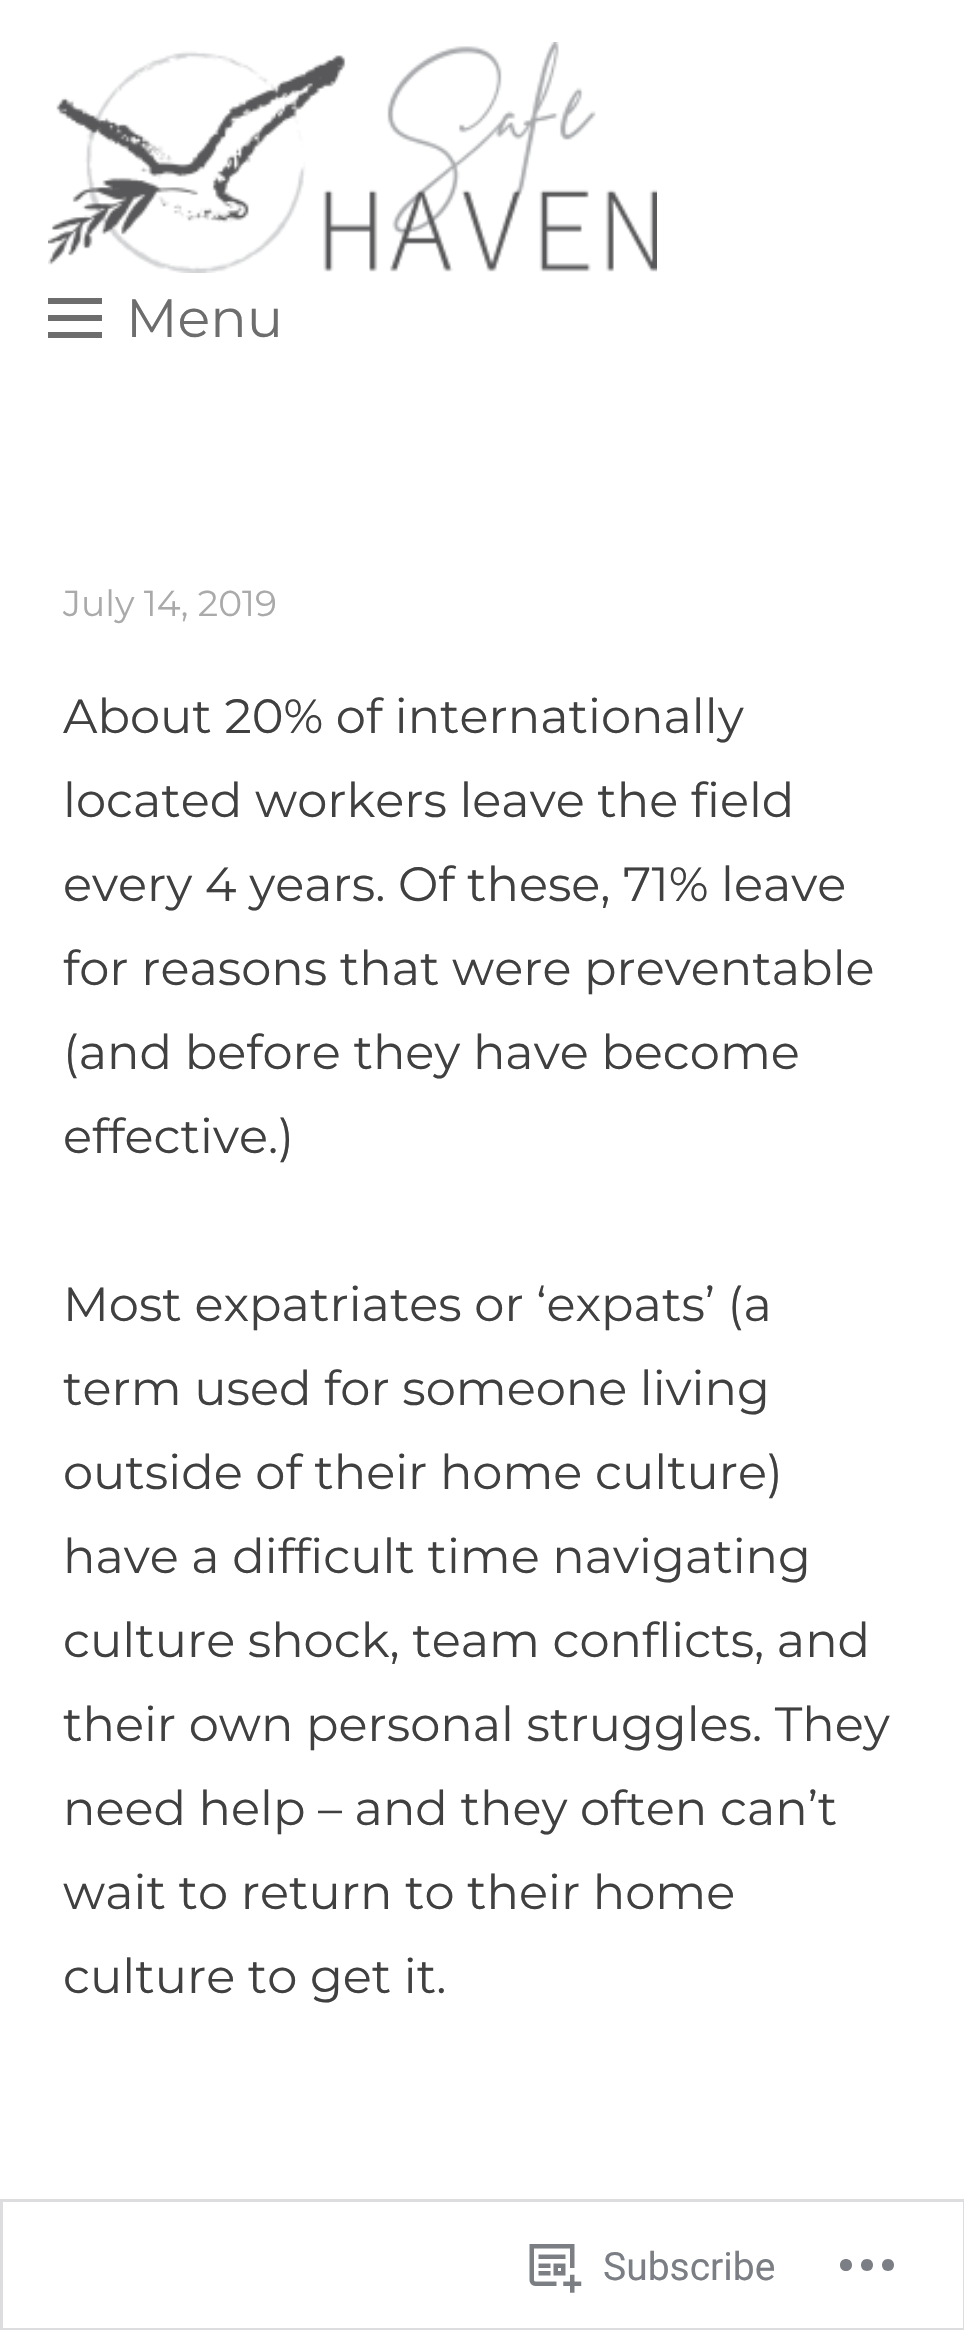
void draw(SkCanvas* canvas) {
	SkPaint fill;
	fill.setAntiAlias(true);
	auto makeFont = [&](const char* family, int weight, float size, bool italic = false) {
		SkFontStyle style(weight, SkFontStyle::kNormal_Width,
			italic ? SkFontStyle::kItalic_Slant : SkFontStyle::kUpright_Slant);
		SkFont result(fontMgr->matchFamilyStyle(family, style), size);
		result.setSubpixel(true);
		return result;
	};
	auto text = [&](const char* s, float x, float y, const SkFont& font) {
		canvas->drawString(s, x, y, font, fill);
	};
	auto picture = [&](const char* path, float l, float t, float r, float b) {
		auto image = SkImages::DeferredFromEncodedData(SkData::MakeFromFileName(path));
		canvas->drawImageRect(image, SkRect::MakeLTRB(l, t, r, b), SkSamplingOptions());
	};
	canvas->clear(0xFFFFFFFF);
	picture("image0.png", 48, 42, 657, 273);
	fill.setColor(0xFF6D6D6D);
	canvas->drawPath(SkPathBuilder().moveTo(48, 338).lineTo(48, 332).lineTo(102, 332).lineTo(102, 338).close().moveTo(48, 298).lineTo(102, 298).lineTo(102, 304).lineTo(48, 304).close().moveTo(48, 321).lineTo(48, 315).lineTo(102, 315).lineTo(102, 321).close().detach(), fill);
	fill.setStyle(SkPaint::kStroke_Style);
	fill.setStrokeWidth(3);
	fill.setColor(0xFFDDDDDF);
	canvas->drawRect(SkRect::MakeLTRB(1.5f, 2200.5f, 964.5f, 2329.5f), fill);
	picture("image1.png", 529, 2244, 582, 2293);
	fill.setStyle(SkPaint::kFill_Style);
	fill.setColor(0xFF7B7F85);
	canvas->drawPath(SkPathBuilder().moveTo(852, 2265).cubicTo(852, 2273, 840, 2273, 840, 2265).cubicTo(840, 2257, 852, 2257, 852, 2265).close().moveTo(888, 2259).cubicTo(880, 2259, 880, 2271, 888, 2271).cubicTo(896, 2271, 896, 2259, 888, 2259).close().moveTo(867, 2259).cubicTo(859, 2259, 859, 2271, 867, 2271).cubicTo(875, 2271, 875, 2259, 867, 2259).close().detach(), fill);
	auto font1 = makeFont("Montserrat", 400, 54);
	fill.setColor(0xFF6D6D6D);
	text("Menu", 126, 337, font1);
	auto font2 = makeFont("Montserrat", 400, 36);
	fill.setColor(0xFFAAAAAA);
	text("July 14, 2019", 63, 616, font2);
	auto font3 = makeFont("Montserrat", 400, 48);
	fill.setColor(0xFF404040);
	text("About 20% of internationally", 63, 733, font3);
	text("located workers leave the field", 63, 817, font3);
	text("every 4 years. Of these, 71% leave", 63, 901, font3);
	text("for reasons that were preventable", 63, 985, font3);
	text("(and before they have become", 63, 1069, font3);
	text("effective.)", 63, 1153, font3);
	text("Most expatriates or ‘expats’ (a", 63, 1321, font3);
	text("term used for someone living", 63, 1405, font3);
	text("outside of their home culture)", 63, 1489, font3);
	text("have a difficult time navigating", 63, 1573, font3);
	text("culture shock, team conflicts, and", 63, 1657, font3);
	text("their own personal struggles. They", 63, 1741, font3);
	text("need help – and they often can’t", 63, 1825, font3);
	text("wait to return to their home", 63, 1909, font3);
	text("culture to get it.", 63, 1993, font3);
	auto font4 = makeFont("Roboto", 400, 39);
	fill.setColor(0xFF7B7F85);
	text("Subscribe", 603, 2280, font4);
}
